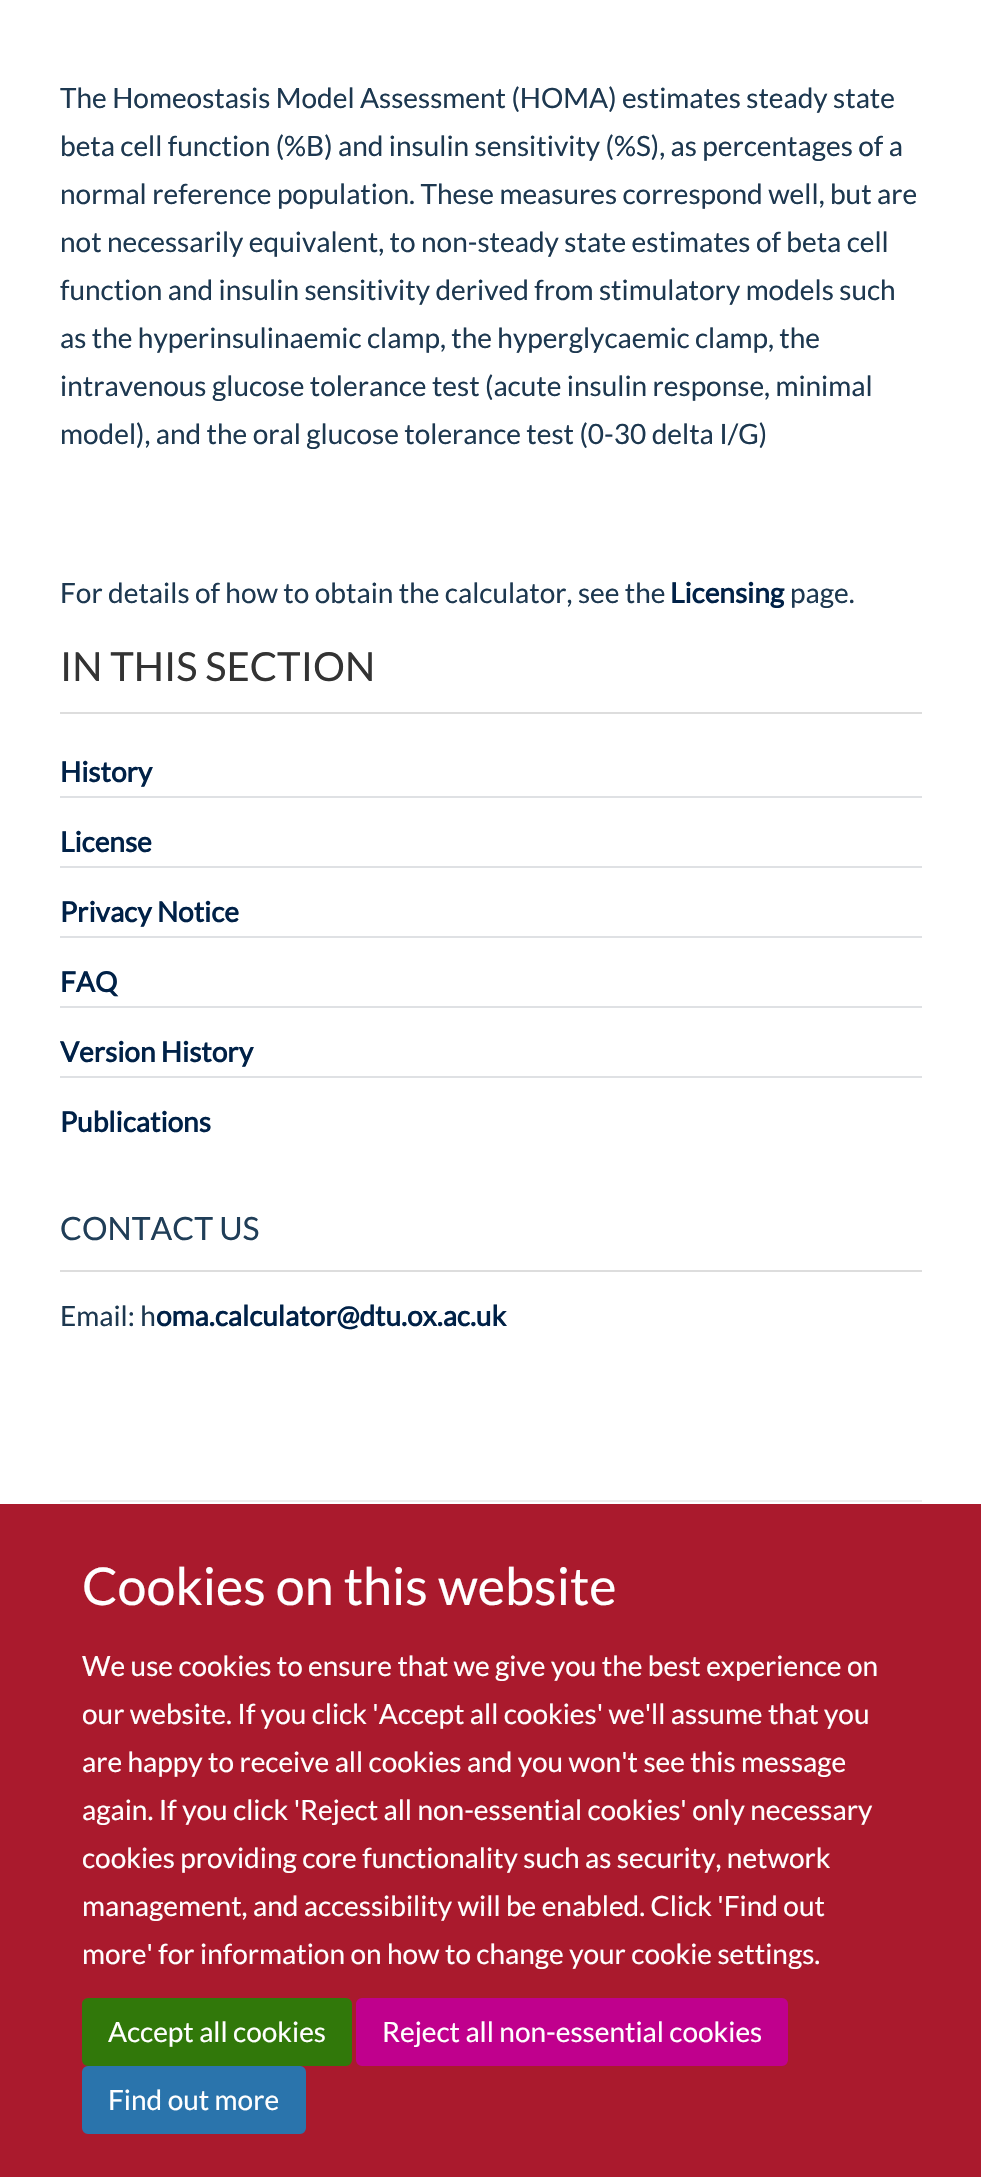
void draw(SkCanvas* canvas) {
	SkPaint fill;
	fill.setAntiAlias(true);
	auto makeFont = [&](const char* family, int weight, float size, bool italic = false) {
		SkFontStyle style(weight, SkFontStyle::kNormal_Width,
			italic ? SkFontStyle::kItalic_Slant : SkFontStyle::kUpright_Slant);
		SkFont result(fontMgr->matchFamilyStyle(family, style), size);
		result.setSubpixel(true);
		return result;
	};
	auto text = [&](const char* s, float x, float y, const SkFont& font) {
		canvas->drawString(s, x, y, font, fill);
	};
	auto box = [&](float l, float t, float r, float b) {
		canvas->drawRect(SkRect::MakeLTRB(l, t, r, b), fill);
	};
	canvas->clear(0xFFFFFFFF);
	fill.setColor(0xFFDDDDDD);
	box(60, 712, 922, 714);
	fill.setColor(0xFFDFE1E4);
	box(60, 796, 922, 798);
	box(60, 866, 922, 868);
	box(60, 936, 922, 938);
	box(60, 1006, 922, 1008);
	box(60, 1076, 922, 1078);
	fill.setColor(0xFFDDDDDD);
	box(60, 1270, 922, 1272);
	fill.setColor(0xFFEEEEEE);
	box(60, 1500, 922, 1502);
	fill.setColor(0xFFAA1A2D);
	box(0, 1504, 981, 2177);
	fill.setColor(0xFF31780A);
	canvas->drawRoundRect(SkRect::MakeLTRB(83, 1999, 351, 2065), 5, 5, fill);
	fill.setStyle(SkPaint::kStroke_Style);
	fill.setStrokeWidth(2);
	canvas->drawRoundRect(SkRect::MakeLTRB(83, 1999, 351, 2065), 5, 5, fill);
	fill.setStyle(SkPaint::kFill_Style);
	fill.setColor(0xFFC0008D);
	canvas->drawRoundRect(SkRect::MakeLTRB(357, 1999, 787, 2065), 5, 5, fill);
	fill.setStyle(SkPaint::kStroke_Style);
	canvas->drawRoundRect(SkRect::MakeLTRB(357, 1999, 787, 2065), 5, 5, fill);
	fill.setStyle(SkPaint::kFill_Style);
	fill.setColor(0xFF2A74AC);
	canvas->drawRoundRect(SkRect::MakeLTRB(83, 2067, 305, 2133), 5, 5, fill);
	fill.setStyle(SkPaint::kStroke_Style);
	canvas->drawRoundRect(SkRect::MakeLTRB(83, 2067, 305, 2133), 5, 5, fill);
	auto font1 = makeFont("Lato", 400, 28);
	fill.setStyle(SkPaint::kFill_Style);
	fill.setColor(0xFF1D3850);
	text("The Homeostasis Model Assessment (HOMA) estimates steady state", 60, 108, font1);
	text("beta cell function (%B) and insulin sensitivity (%S), as percentages of a", 60, 156, font1);
	text("normal reference population. These measures correspond well, but are", 60, 204, font1);
	text("not necessarily equivalent, to non-steady state estimates of beta cell", 60, 252, font1);
	text("function and insulin sensitivity derived from stimulatory models such", 60, 300, font1);
	text("as the hyperinsulinaemic clamp, the hyperglycaemic clamp, the", 60, 348, font1);
	text("intravenous glucose tolerance test (acute insulin response, minimal", 60, 396, font1);
	text("model), and the oral glucose tolerance test (0-30 delta I/G)", 60, 444, font1);
	text("For details of how to obtain the calculator, see the", 60, 603, font1);
	auto font2 = makeFont("Lato", 700, 28);
	fill.setColor(0xFF002147);
	text("Licensing", 670, 603, font2);
	fill.setColor(0xFF1D3850);
	text("page.", 790, 603, font1);
	auto font3 = makeFont("Lato", 400, 40);
	fill.setColor(0xFF333333);
	text("IN THIS SECTION", 60, 681, font3);
	fill.setColor(0xFF002147);
	text("History", 60, 782, font2);
	text("License", 60, 852, font2);
	text("Privacy Notice", 60, 922, font2);
	text("FAQ", 60, 992, font2);
	text("Version History", 60, 1062, font2);
	text("Publications", 60, 1132, font2);
	auto font4 = makeFont("Lato", 400, 32);
	fill.setColor(0xFF203E58);
	text("CONTACT US", 60, 1240, font4);
	fill.setColor(0xFF1D3850);
	text("Email: h", 60, 1326, font1);
	fill.setColor(0xFF002147);
	text("oma.calculator@dtu.ox.ac.uk", 156, 1326, font2);
	auto font5 = makeFont("Lato", 400, 52);
	fill.setColor(0xFFFFFFFF);
	text("Cookies on this website", 82, 1605, font5);
	text("We use cookies to ensure that we give you the best experience on", 82, 1676, font1);
	text("our website. If you click 'Accept all cookies' we'll assume that you", 82, 1724, font1);
	text("are happy to receive all cookies and you won't see this message", 82, 1772, font1);
	text("again. If you click 'Reject all non-essential cookies' only necessary", 82, 1820, font1);
	text("cookies providing core functionality such as security, network", 82, 1868, font1);
	text("management, and accessibility will be enabled. Click 'Find out", 82, 1916, font1);
	text("more' for information on how to change your cookie settings.", 82, 1964, font1);
	text("Accept all cookies", 108, 2042, font1);
	text("Reject all non-essential cookies", 382, 2042, font1);
	text("Find out more", 108, 2110, font1);
}
